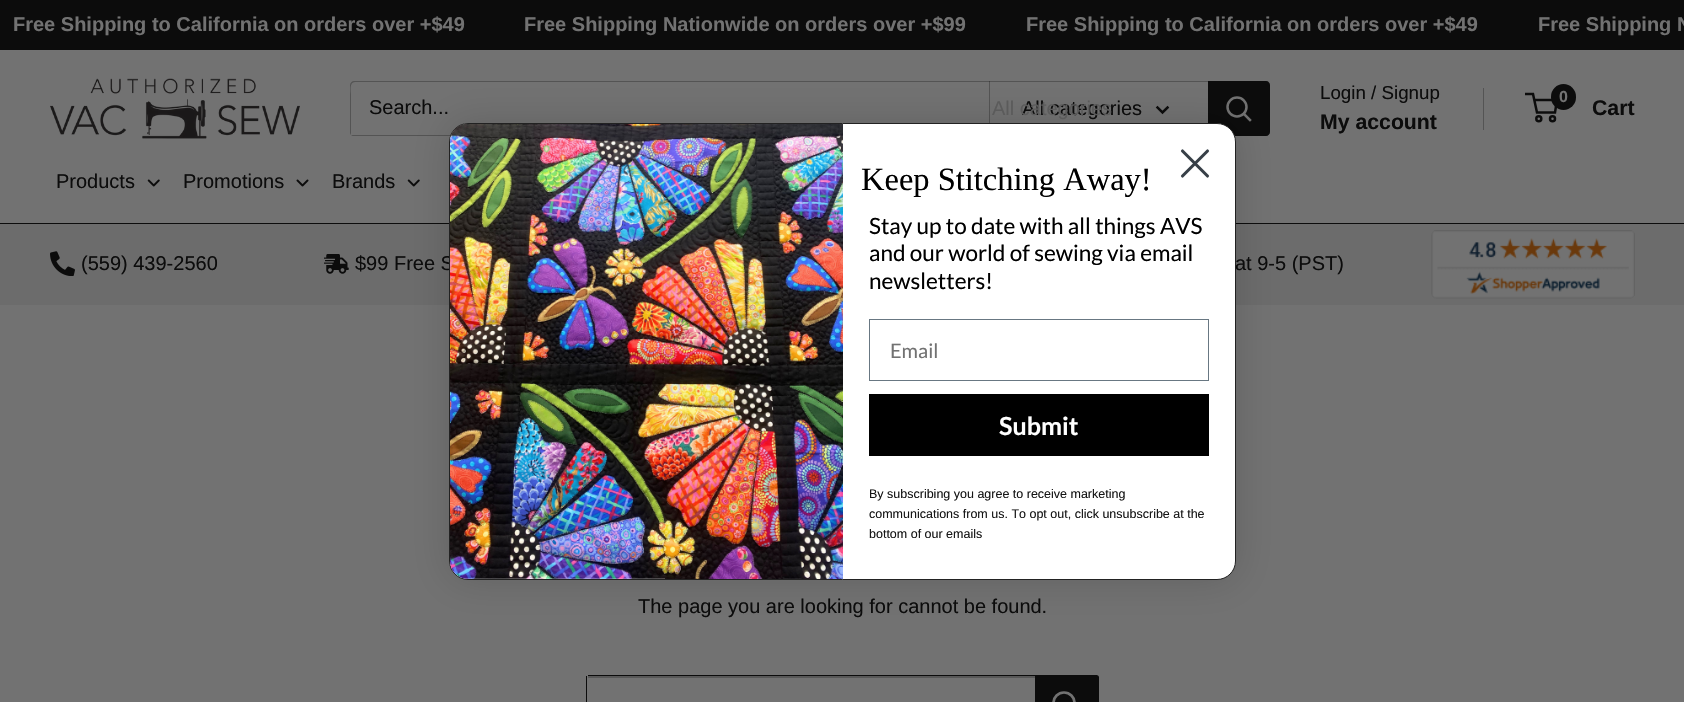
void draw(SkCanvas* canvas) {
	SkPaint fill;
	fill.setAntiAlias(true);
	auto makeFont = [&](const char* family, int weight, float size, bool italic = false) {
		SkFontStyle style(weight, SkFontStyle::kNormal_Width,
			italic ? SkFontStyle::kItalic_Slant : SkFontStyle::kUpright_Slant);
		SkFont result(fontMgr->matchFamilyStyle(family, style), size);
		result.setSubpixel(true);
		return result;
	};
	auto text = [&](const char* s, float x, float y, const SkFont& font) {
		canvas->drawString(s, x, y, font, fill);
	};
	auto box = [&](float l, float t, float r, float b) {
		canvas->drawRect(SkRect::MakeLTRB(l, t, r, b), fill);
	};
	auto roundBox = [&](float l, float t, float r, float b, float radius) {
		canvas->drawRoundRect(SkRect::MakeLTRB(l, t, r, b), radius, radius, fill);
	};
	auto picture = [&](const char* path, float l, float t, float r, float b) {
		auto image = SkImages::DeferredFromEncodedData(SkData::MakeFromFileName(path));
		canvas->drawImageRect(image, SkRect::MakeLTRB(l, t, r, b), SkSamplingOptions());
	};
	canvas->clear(0xFF727272);
	fill.setColor(0xFF0C0C0C);
	box(0, 0, 1684, 50);
	picture("image0.png", 50, 78, 300, 139);
	fill.setColor(0xFF545454);
	canvas->drawPath(SkPathBuilder().moveTo(351, 135).cubicTo(352, 136, 353, 136, 354, 136).lineTo(1266, 136).cubicTo(1268, 136, 1270, 134, 1270, 132).lineTo(1270, 85).cubicTo(1270, 84, 1269, 82, 1268, 82).lineTo(1269, 84).lineTo(1269, 131).cubicTo(1269, 133, 1267, 135, 1265, 135).close().detach(), fill);
	canvas->drawPath(SkPathBuilder().moveTo(355, 82).lineTo(1269, 82).cubicTo(1268, 81, 1267, 81, 1266, 81).lineTo(354, 81).cubicTo(352, 81, 350, 83, 350, 85).lineTo(350, 132).cubicTo(350, 133, 350, 134, 351, 135).lineTo(351, 94).cubicTo(351, 92, 349, 82, 355, 82).close().detach(), fill);
	fill.setColor(0x4D0C0C0C);
	box(989, 81, 990, 123);
	fill.setStyle(SkPaint::kStroke_Style);
	fill.setStrokeWidth(2.5f);
	fill.setStrokeCap(SkPaint::kSquare_Cap);
	fill.setColor(0xFF0C0C0C);
	canvas->drawPath(SkPathBuilder().moveTo(1167.5f, 107.5f).lineTo(1162.5f, 112.5f).lineTo(1157.5f, 107.5f).detach(), fill);
	fill.setStyle(SkPaint::kFill_Style);
	canvas->drawPath(SkPathBuilder().moveTo(1208, 81).lineTo(1266, 81).cubicTo(1268, 81, 1270, 83, 1270, 85).lineTo(1270, 132).cubicTo(1270, 134, 1268, 136, 1266, 136).lineTo(1208, 136).close().detach(), fill);
	fill.setStyle(SkPaint::kStroke_Style);
	fill.setColor(0xFF727272);
	canvas->drawPath(SkPathBuilder().moveTo(1250, 120).lineTo(1244, 114).detach(), fill);
	fill.setStrokeCap(SkPaint::kButt_Cap);
	canvas->drawCircle(1237, 107, 9.5f, fill);
	fill.setStyle(SkPaint::kFill_Style);
	fill.setColor(0xFF545454);
	box(1483, 88, 1484, 130);
	fill.setStyle(SkPaint::kStroke_Style);
	fill.setColor(0xFF0C0C0C);
	canvas->drawCircle(1538.8f, 118.8f, 2.5f, fill);
	canvas->drawCircle(1552.5f, 118.8f, 2.5f, fill);
	canvas->drawPath(SkPathBuilder().moveTo(1534, 100).lineTo(1557, 100).lineTo(1555, 112.5f).lineTo(1537, 112.5f).lineTo(1533, 94).lineTo(1525, 94).detach(), fill);
	fill.setStyle(SkPaint::kFill_Style);
	roundBox(1551, 84, 1576, 110, 12.5f);
	box(0, 223, 1684, 224);
	picture("image1.png", 147, 179, 160, 187);
	picture("image2.png", 296, 179, 309, 187);
	picture("image1.png", 407, 179, 420, 187);
	fill.setColor(0xFF6C6C6C);
	box(0, 224, 1684, 305);
	fill.setColor(0x26000000);
	fill.setMaskFilter(SkMaskFilter::MakeBlur(kNormal_SkBlurStyle, 19));
	canvas->drawRoundRect(SkRect::MakeLTRB(449, 123, 1236, 580), 19, 19, fill);
	fill.setMaskFilter(nullptr);
	picture("image4.png", 50, 251, 75, 276);
	picture("image5.png", 324, 254, 349, 274);
	picture("image6.png", 1431, 230, 1635, 299);
	fill.setColor(0xFF585858);
	canvas->drawPath(SkPathBuilder().moveTo(589, 678).lineTo(1035, 678).lineTo(1035, 676).lineTo(588, 676).lineTo(588, 679).cubicTo(588, 678, 588, 678, 589, 678).close().detach(), fill);
	fill.setColor(0xFF0C0C0C);
	box(588, 675, 1035, 676);
	box(586, 676, 587, 702);
	canvas->drawPath(SkPathBuilder().moveTo(1035, 675).lineTo(1096.5f, 675).cubicTo(1098, 675, 1099, 676, 1099, 677.5f).lineTo(1099, 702.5f).cubicTo(1099, 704, 1098, 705, 1096.5f, 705).lineTo(1035, 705).close().detach(), fill);
	fill.setStyle(SkPaint::kStroke_Style);
	fill.setStrokeWidth(2.7f);
	fill.setColor(0xFF727272);
	canvas->drawCircle(1064, 703, 10.5f, fill);
	auto font1 = makeFont("Liberation Sans", 700, 20);
	fill.setStyle(SkPaint::kFill_Style);
	text("Free Shipping to California on orders over +$49", 13, 31, font1);
	text("Free Shipping Nationwide on orders over +$99", 524, 31, font1);
	text("Free Shipping to California on orders over +$49", 1026, 31, font1);
	text("Free Shipping N", 1538, 31, font1);
	auto font2 = makeFont("Liberation Sans", 400, 20);
	fill.setColor(0xFF0C0C0C);
	text("Search...", 369, 114, font2);
	text("All categories", 1022, 115, font2);
	fill.setColor(0xFF5B5B5B);
	text("All categories", 992, 115, font2);
	auto font3 = makeFont("Liberation Sans", 400, 18.75f);
	fill.setColor(0xFF0C0C0C);
	text("Login / Signup", 1320, 99, font3);
	auto font4 = makeFont("Liberation Sans", 700, 21.25f);
	text("My account", 1320, 129, font4);
	auto font5 = makeFont("Liberation Sans", 700, 16);
	fill.setColor(0xFF727272);
	text("0", 1559, 102, font5);
	fill.setColor(0xFF0C0C0C);
	text("Cart", 1592, 115, font4);
	text("Products", 56, 188, font2);
	text("Promotions", 183, 188, font2);
	text("Brands", 332, 188, font2);
	text("(559) 439-2560", 81, 270, font2);
	text("$99 Free S", 355, 270, font2);
	fill.setColor(0xFFFFFFFF);
	canvas->drawRoundRect(SkRect::MakeLTRB(449.5f, 123.5f, 1235.5f, 579.5f), 18.5f, 18.5f, fill);
	fill.setStyle(SkPaint::kStroke_Style);
	fill.setStrokeWidth(1);
	fill.setColor(0xFF222222);
	canvas->drawRoundRect(SkRect::MakeLTRB(449.5f, 123.5f, 1235.5f, 579.5f), 18.5f, 18.5f, fill);
	fill.setStrokeWidth(3.1f);
	fill.setStrokeCap(SkPaint::kRound_Cap);
	fill.setStrokeJoin(SkPaint::kRound_Join);
	fill.setColor(0xFF373F47);
	canvas->drawPath(SkPathBuilder().moveTo(1182.5f, 151).lineTo(1207.5f, 176).moveTo(1182.5f, 176).lineTo(1207.5f, 151).close().detach(), fill);
	auto font6 = makeFont("Liberation Sans", 400, 12.5f);
	fill.setStyle(SkPaint::kFill_Style);
	fill.setColor(0xFF161616);
	text("bottom of our emails", 869, 538, font6);
	text("communications from us. To opt out, click unsubscribe at the", 869, 518, font6);
	text("By subscribing you agree to receive marketing", 869, 498, font6);
	fill.setColor(0xFF000000);
	box(869, 394, 1209, 456);
	auto font7 = makeFont("Lato", 700, 25);
	fill.setColor(0xFFFFFFFF);
	text("Submit", 999, 435, font7);
	fill.setStyle(SkPaint::kStroke_Style);
	fill.setStrokeWidth(1);
	fill.setStrokeCap(SkPaint::kButt_Cap);
	fill.setStrokeJoin(SkPaint::kMiter_Join);
	fill.setColor(0xFF687782);
	canvas->drawRect(SkRect::MakeLTRB(869.5f, 319.5f, 1208.5f, 380.5f), fill);
	auto font8 = makeFont("Lato", 400, 20);
	fill.setStyle(SkPaint::kFill_Style);
	fill.setColor(0xFF727272);
	text("Email", 890, 358, font8);
	auto font9 = makeFont("Lato", 400, 22.5f);
	fill.setColor(0xFF000000);
	text("newsletters!", 869, 289, font9);
	text("and our world of sewing via email", 869, 261, font9);
	text("Stay up to date with all things AVS", 869, 234, font9);
	auto font10 = makeFont("Liberation Serif", 400, 32.5f);
	text("Keep Stitching Away!", 861, 190, font10);
	picture("image3.png", 450, 124, 843, 579);
	fill.setColor(0xFF0C0C0C);
	text("at 9-5 (PST)", 1235, 270, font2);
	text("The page you are looking for cannot be found.", 638, 613, font2);
}
